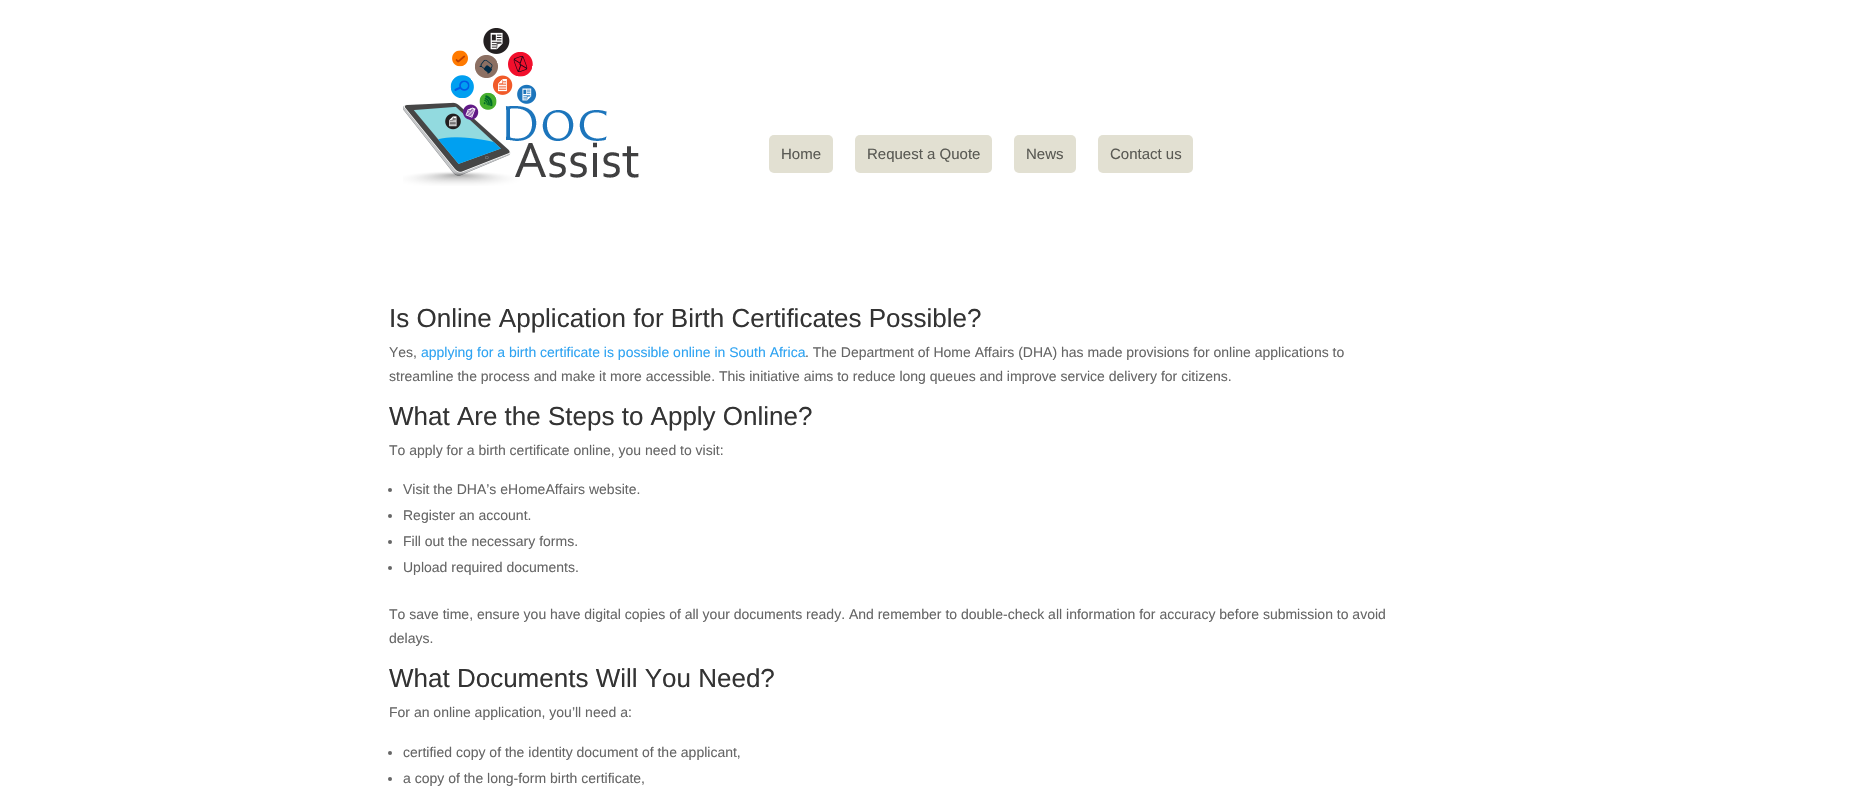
void draw(SkCanvas* canvas) {
	SkPaint fill;
	fill.setAntiAlias(true);
	auto makeFont = [&](const char* family, int weight, float size, bool italic = false) {
		SkFontStyle style(weight, SkFontStyle::kNormal_Width,
			italic ? SkFontStyle::kItalic_Slant : SkFontStyle::kUpright_Slant);
		SkFont result(fontMgr->matchFamilyStyle(family, style), size);
		result.setSubpixel(true);
		return result;
	};
	auto text = [&](const char* s, float x, float y, const SkFont& font) {
		canvas->drawString(s, x, y, font, fill);
	};
	auto roundBox = [&](float l, float t, float r, float b, float radius) {
		canvas->drawRoundRect(SkRect::MakeLTRB(l, t, r, b), radius, radius, fill);
	};
	auto picture = [&](const char* path, float l, float t, float r, float b) {
		auto image = SkImages::DeferredFromEncodedData(SkData::MakeFromFileName(path));
		canvas->drawImageRect(image, SkRect::MakeLTRB(l, t, r, b), SkSamplingOptions());
	};
	canvas->clear(0xFFFFFFFF);
	picture("image0.png", 403, 28, 639, 186);
	fill.setColor(0xFFE2E0D2);
	roundBox(769, 135, 833, 173, 5);
	roundBox(855, 135, 992, 173, 5);
	roundBox(1014, 135, 1076, 173, 5);
	roundBox(1098, 135, 1193, 173, 5);
	fill.setColor(0xFF666666);
	canvas->drawCircle(390, 490, 2, fill);
	canvas->drawCircle(390, 516, 2, fill);
	canvas->drawCircle(390, 542, 2, fill);
	canvas->drawCircle(390, 568, 2, fill);
	canvas->drawCircle(390, 753, 2, fill);
	canvas->drawCircle(390, 779, 2, fill);
	auto font1 = makeFont("Liberation Sans", 400, 15);
	fill.setColor(0xFF5A5A54);
	text("Home", 781, 159, font1);
	text("Request a Quote", 867, 159, font1);
	text("News", 1026, 159, font1);
	text("Contact us", 1110, 159, font1);
	auto font2 = makeFont("Liberation Sans", 400, 26);
	fill.setColor(0xFF333333);
	text("Is Online Application for Birth Certificates Possible?", 389, 327, font2);
	auto font3 = makeFont("Liberation Sans", 400, 14);
	fill.setColor(0xFF666666);
	text("Yes,", 389, 357, font3);
	fill.setColor(0xFF2EA3F2);
	text("applying for a birth certificate is possible online in South Africa", 421, 357, font3);
	fill.setColor(0xFF666666);
	text(". The Department of Home Affairs (DHA) has made provisions for online applications to", 805, 357, font3);
	text("streamline the process and make it more accessible. This initiative aims to reduce long queues and improve service delivery for citizens.", 389, 381, font3);
	fill.setColor(0xFF333333);
	text("What Are the Steps to Apply Online?", 389, 425, font2);
	fill.setColor(0xFF666666);
	text("To apply for a birth certificate online, you need to visit:", 389, 455, font3);
	text("Visit the DHA’s eHomeAffairs website.", 403, 494, font3);
	text("Register an account.", 403, 520, font3);
	text("Fill out the necessary forms.", 403, 546, font3);
	text("Upload required documents.", 403, 572, font3);
	text("To save time, ensure you have digital copies of all your documents ready. And remember to double-check all information for accuracy before submission to avoid", 389, 619, font3);
	text("delays.", 389, 643, font3);
	fill.setColor(0xFF333333);
	text("What Documents Will You Need?", 389, 687, font2);
	fill.setColor(0xFF666666);
	text("For an online application, you’ll need a:", 389, 717, font3);
	text("certified copy of the identity document of the applicant,", 403, 757, font3);
	text("a copy of the long-form birth certificate,", 403, 783, font3);
}
